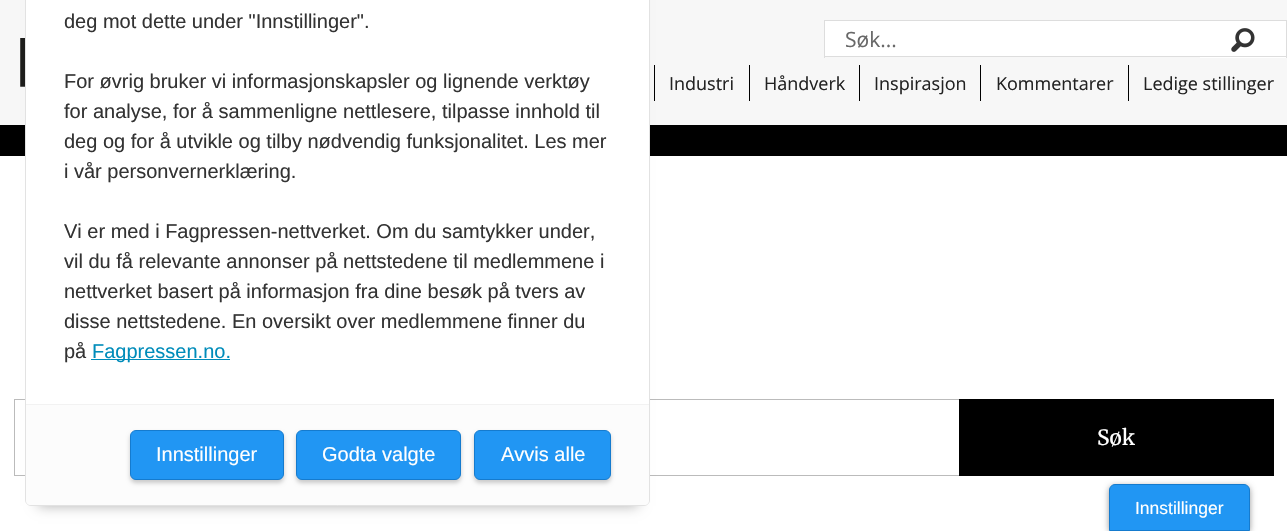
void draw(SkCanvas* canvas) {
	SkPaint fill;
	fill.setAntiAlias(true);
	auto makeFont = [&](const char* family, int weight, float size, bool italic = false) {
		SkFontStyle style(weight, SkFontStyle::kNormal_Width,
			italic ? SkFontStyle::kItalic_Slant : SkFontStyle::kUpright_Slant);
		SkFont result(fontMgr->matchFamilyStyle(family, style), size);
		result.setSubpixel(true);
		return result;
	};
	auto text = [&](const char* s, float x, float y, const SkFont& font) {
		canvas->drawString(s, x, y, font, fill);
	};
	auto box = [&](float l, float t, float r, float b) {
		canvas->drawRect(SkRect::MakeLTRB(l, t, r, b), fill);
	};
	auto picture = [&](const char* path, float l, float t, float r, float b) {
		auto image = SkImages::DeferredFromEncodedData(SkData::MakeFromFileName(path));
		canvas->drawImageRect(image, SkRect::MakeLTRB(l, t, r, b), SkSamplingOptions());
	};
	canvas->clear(0xFFFFFFFF);
	fill.setColor(0xFFF7F7F7);
	box(0, 0, 1287, 125);
	picture("image0.png", 20, 38, 25, 87);
	fill.setColor(0xFF000000);
	box(654, 65, 655, 101);
	box(0, 125, 1287, 156);
	fill.setColor(0xFFBBBBBB);
	box(14, 399, 959, 400);
	box(14, 475, 959, 476);
	fill.setColor(0x4D000000);
	fill.setMaskFilter(SkMaskFilter::MakeBlur(kNormal_SkBlurStyle, 6));
	canvas->drawRect(SkRect::MakeLTRB(38, -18, 638, 506), fill);
	fill.setMaskFilter(nullptr);
	fill.setColor(0xFFFFFFFF);
	canvas->drawRoundRect(SkRect::MakeLTRB(25.5f, -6.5f, 649.5f, 505.5f), 5.5f, 5.5f, fill);
	fill.setStyle(SkPaint::kStroke_Style);
	fill.setStrokeWidth(1);
	fill.setColor(0xFFE2E2E2);
	canvas->drawRoundRect(SkRect::MakeLTRB(25.5f, -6.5f, 649.5f, 505.5f), 5.5f, 5.5f, fill);
	fill.setStyle(SkPaint::kFill_Style);
	fill.setColor(0xFF008CBA);
	box(91, 359, 230, 360);
	fill.setColor(0xFFFCFCFC);
	canvas->drawPath(SkPathBuilder().moveTo(26, 404).lineTo(649, 404).lineTo(649, 500).cubicTo(649, 503, 647, 505, 644, 505).lineTo(31, 505).cubicTo(28, 505, 26, 503, 26, 500).close().detach(), fill);
	fill.setColor(0xFFF2F2F2);
	box(26, 404, 649, 405);
	fill.setColor(0x33000000);
	fill.setMaskFilter(SkMaskFilter::MakeBlur(kNormal_SkBlurStyle, 2));
	canvas->drawRoundRect(SkRect::MakeLTRB(130, 433, 284, 483), 6, 6, fill);
	fill.setMaskFilter(nullptr);
	fill.setColor(0xFF2196F3);
	canvas->drawRoundRect(SkRect::MakeLTRB(130.5f, 430.5f, 283.5f, 479.5f), 5.5f, 5.5f, fill);
	fill.setStyle(SkPaint::kStroke_Style);
	fill.setColor(0xFF157BCE);
	canvas->drawRoundRect(SkRect::MakeLTRB(130.5f, 430.5f, 283.5f, 479.5f), 5.5f, 5.5f, fill);
	fill.setStyle(SkPaint::kFill_Style);
	fill.setColor(0x33000000);
	fill.setMaskFilter(SkMaskFilter::MakeBlur(kNormal_SkBlurStyle, 2));
	canvas->drawRoundRect(SkRect::MakeLTRB(296, 433, 461, 483), 6, 6, fill);
	fill.setMaskFilter(nullptr);
	fill.setColor(0xFF2196F3);
	canvas->drawRoundRect(SkRect::MakeLTRB(296.5f, 430.5f, 460.5f, 479.5f), 5.5f, 5.5f, fill);
	fill.setStyle(SkPaint::kStroke_Style);
	fill.setColor(0xFF157BCE);
	canvas->drawRoundRect(SkRect::MakeLTRB(296.5f, 430.5f, 460.5f, 479.5f), 5.5f, 5.5f, fill);
	fill.setStyle(SkPaint::kFill_Style);
	fill.setColor(0x33000000);
	fill.setMaskFilter(SkMaskFilter::MakeBlur(kNormal_SkBlurStyle, 2));
	canvas->drawRoundRect(SkRect::MakeLTRB(474, 433, 611, 483), 6, 6, fill);
	fill.setMaskFilter(nullptr);
	fill.setColor(0xFF2196F3);
	canvas->drawRoundRect(SkRect::MakeLTRB(474.5f, 430.5f, 610.5f, 479.5f), 5.5f, 5.5f, fill);
	fill.setStyle(SkPaint::kStroke_Style);
	fill.setColor(0xFF157BCE);
	canvas->drawRoundRect(SkRect::MakeLTRB(474.5f, 430.5f, 610.5f, 479.5f), 5.5f, 5.5f, fill);
	fill.setStyle(SkPaint::kFill_Style);
	fill.setColor(0xFFDDDDDD);
	box(824, 20, 1287, 21);
	box(824, 56, 1200, 57);
	box(824, 20, 825, 58);
	fill.setColor(0xFFFFFFFF);
	box(825, 21, 1200, 56);
	box(1200, 21, 1286, 58);
	fill.setColor(0xFFDDDDDD);
	box(1286, 20, 1287, 58);
	box(1200, 56, 1287, 57);
	picture("image1.png", 1231, 28, 1255, 52);
	fill.setColor(0xFF000000);
	box(749, 65, 750, 101);
	box(859, 65, 860, 101);
	box(980, 65, 981, 101);
	box(1128, 65, 1129, 101);
	fill.setColor(0xFFBBBBBB);
	box(14, 399, 15, 476);
	fill.setColor(0xFF000000);
	box(959, 399, 1274, 476);
	fill.setColor(0x66000000);
	fill.setMaskFilter(SkMaskFilter::MakeBlur(kNormal_SkBlurStyle, 3));
	canvas->drawRoundRect(SkRect::MakeLTRB(1109, 486, 1250, 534), 6, 6, fill);
	fill.setMaskFilter(nullptr);
	fill.setColor(0xFF2196F3);
	canvas->drawPath(SkPathBuilder().moveTo(1115, 484.5f).lineTo(1244, 484.5f).cubicTo(1247, 484.5f, 1249.5f, 487, 1249.5f, 490).lineTo(1249.5f, 530.5f).lineTo(1109.5f, 530.5f).lineTo(1109.5f, 490).cubicTo(1109.5f, 487, 1112, 484.5f, 1115, 484.5f).close().detach(), fill);
	fill.setStyle(SkPaint::kStroke_Style);
	fill.setColor(0xFF157BCE);
	canvas->drawPath(SkPathBuilder().moveTo(1115, 484.5f).lineTo(1244, 484.5f).cubicTo(1247, 484.5f, 1249.5f, 487, 1249.5f, 490).lineTo(1249.5f, 530.5f).lineTo(1109.5f, 530.5f).lineTo(1109.5f, 490).cubicTo(1109.5f, 487, 1112, 484.5f, 1115, 484.5f).close().detach(), fill);
	auto font1 = makeFont("Liberation Sans", 400, 20);
	fill.setStyle(SkPaint::kFill_Style);
	fill.setColor(0xFF333333);
	text("deg mot dette under \"Innstillinger\".", 64, 28, font1);
	text("For øvrig bruker vi informasjonskapsler og lignende verktøy", 64, 88, font1);
	text("for analyse, for å sammenligne nettlesere, tilpasse innhold til", 64, 118, font1);
	text("deg og for å utvikle og tilby nødvendig funksjonalitet. Les mer", 64, 148, font1);
	text("i vår personvernerklæring.", 64, 178, font1);
	text("Vi er med i Fagpressen-nettverket. Om du samtykker under,", 64, 238, font1);
	text("vil du få relevante annonser på nettstedene til medlemmene i", 64, 268, font1);
	text("nettverket basert på informasjon fra dine besøk på tvers av", 64, 298, font1);
	text("disse nettstedene. En oversikt over medlemmene finner du", 64, 328, font1);
	text("på", 64, 358, font1);
	fill.setColor(0xFF008CBA);
	text("Fagpressen.no.", 92, 358, font1);
	fill.setColor(0xFFFFFFFF);
	text("Innstillinger", 156, 461, font1);
	text("Godta valgte", 322, 461, font1);
	text("Avvis alle", 501, 461, font1);
	auto font2 = makeFont("Open Sans", 400, 21);
	fill.setColor(0xFF686868);
	text("Søk...", 845, 47, font2);
	auto font3 = makeFont("Open Sans", 400, 18);
	fill.setColor(0xFF222222);
	text("Industri", 669, 90, font3);
	text("Håndverk", 764, 90, font3);
	text("Inspirasjon", 874, 90, font3);
	text("Kommentarer", 996, 90, font3);
	text("Ledige stillinger", 1143, 90, font3);
	auto font4 = makeFont("Merriweather", 400, 21);
	fill.setColor(0xFFFFFFFF);
	text("Søk", 1097, 445, font4);
	auto font5 = makeFont("Liberation Sans", 400, 17.5f);
	text("Innstillinger", 1135, 514, font5);
}
